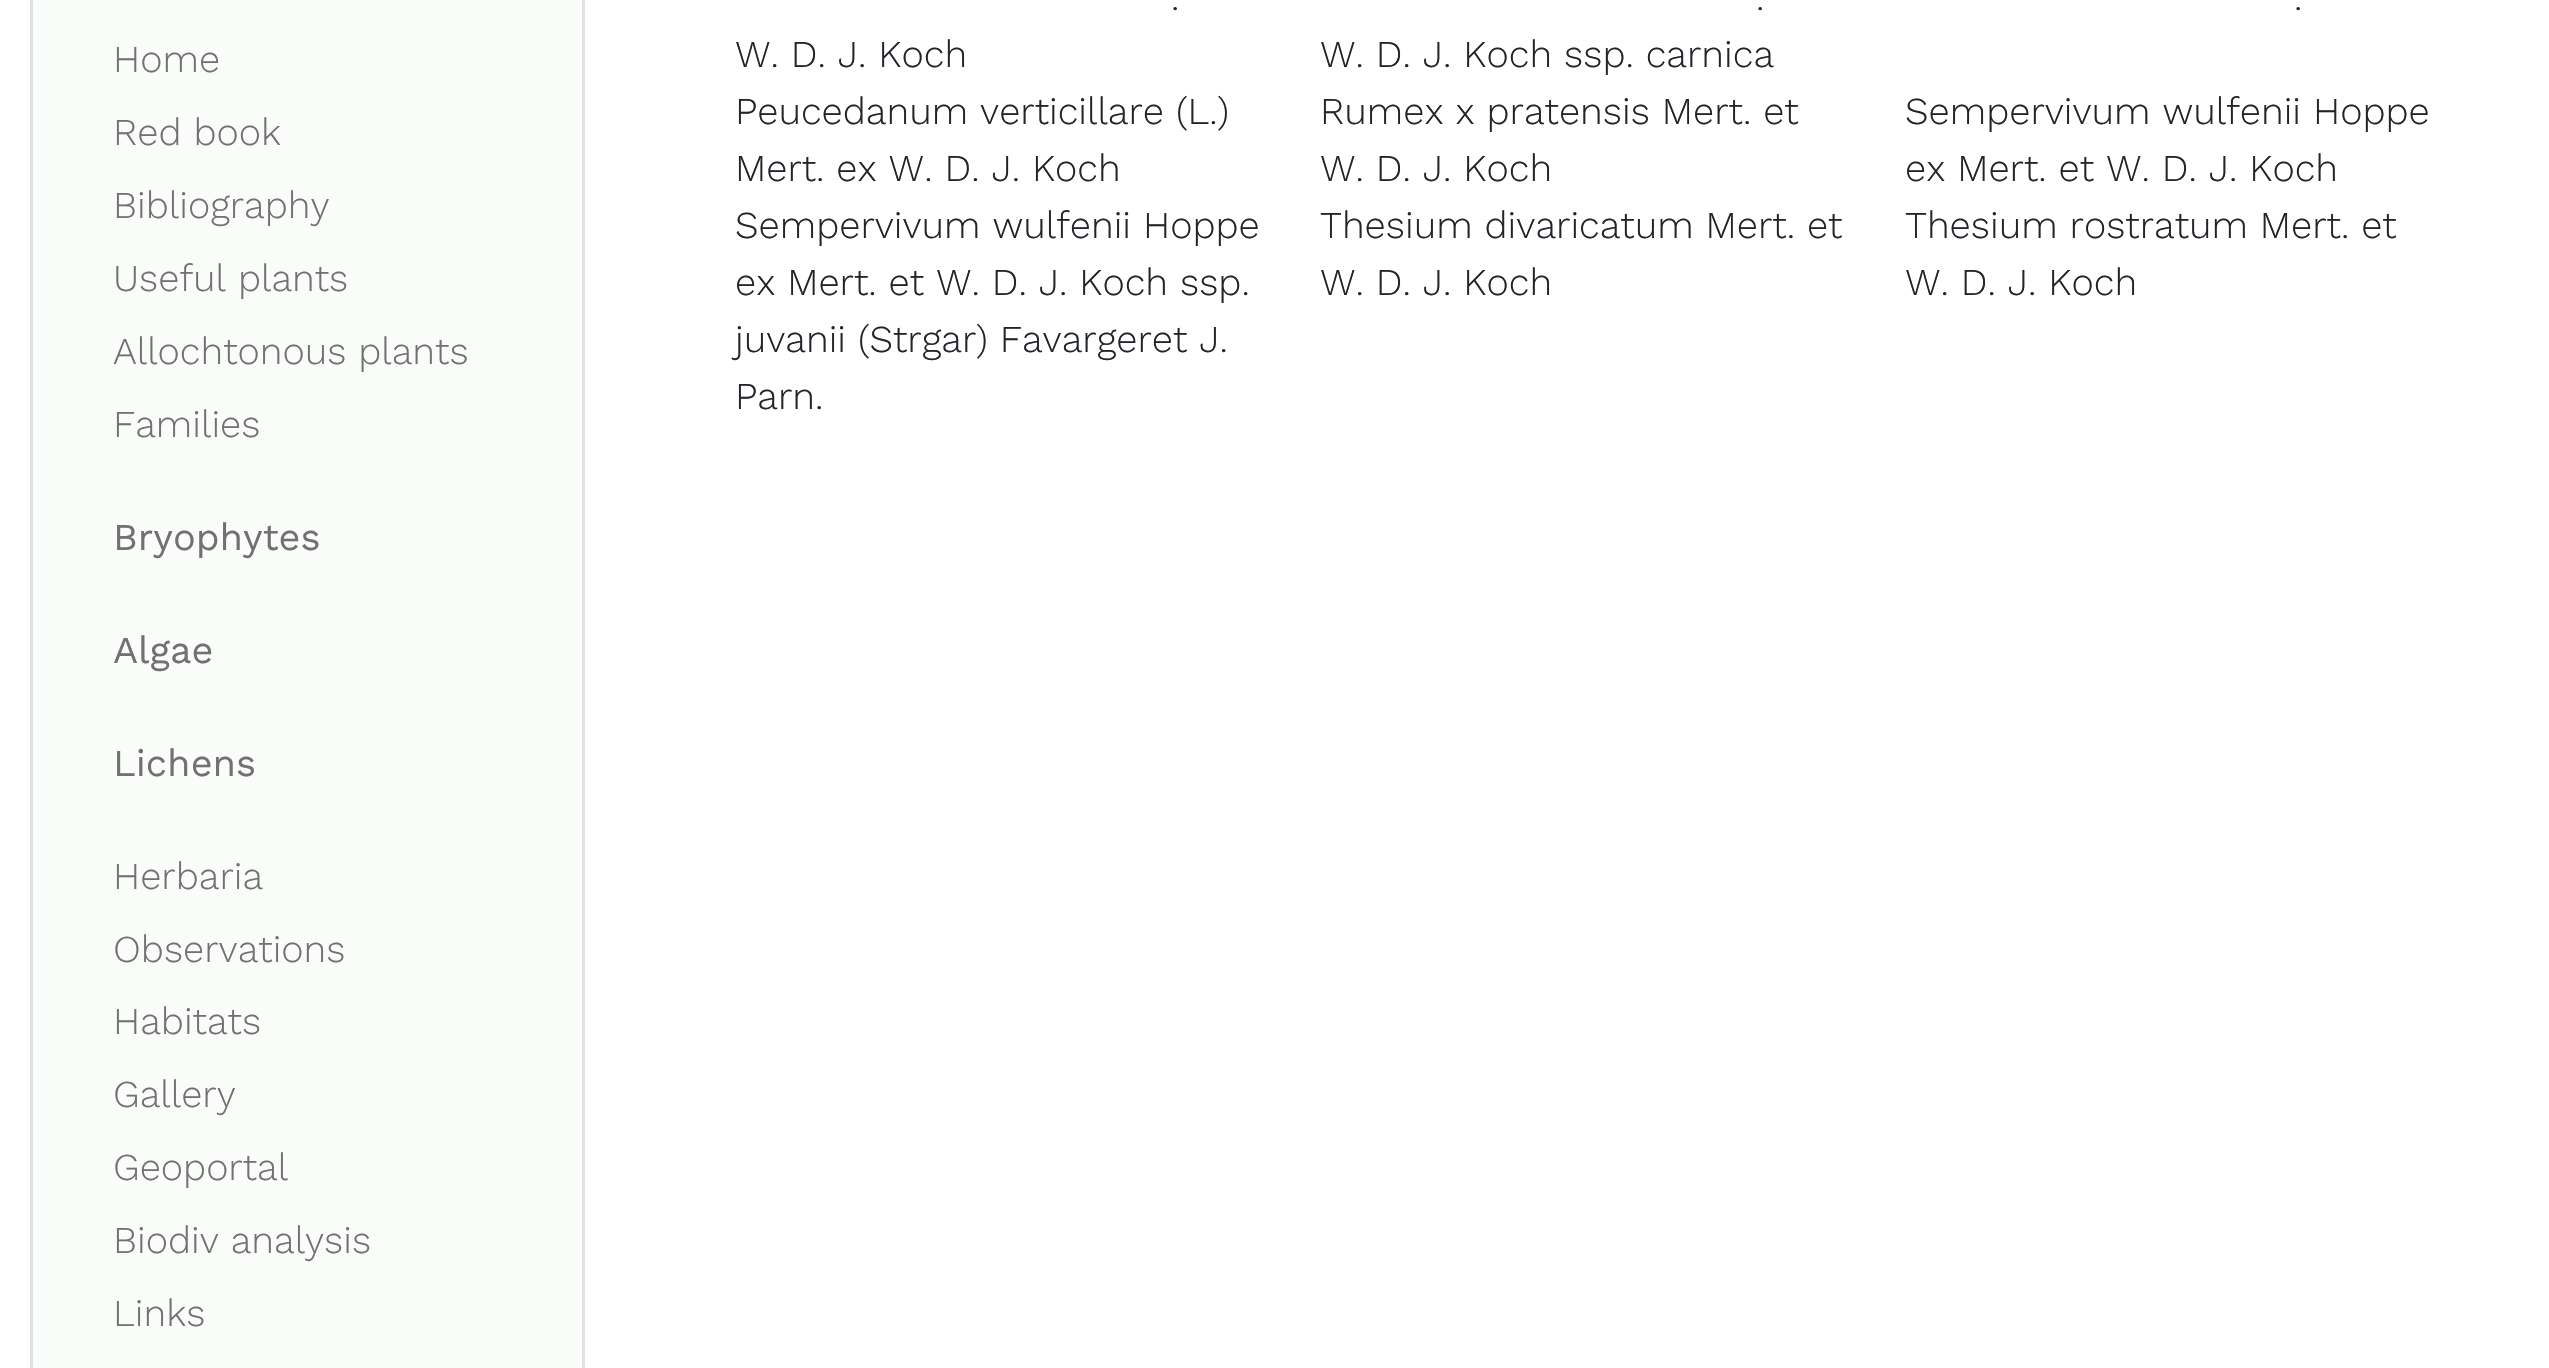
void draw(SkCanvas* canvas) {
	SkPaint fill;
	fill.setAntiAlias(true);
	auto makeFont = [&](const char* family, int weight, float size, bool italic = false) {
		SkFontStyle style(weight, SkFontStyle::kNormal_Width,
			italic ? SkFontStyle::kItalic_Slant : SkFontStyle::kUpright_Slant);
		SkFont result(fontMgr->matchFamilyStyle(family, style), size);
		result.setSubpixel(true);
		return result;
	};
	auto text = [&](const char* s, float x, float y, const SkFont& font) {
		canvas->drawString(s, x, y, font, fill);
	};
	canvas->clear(0xFFFFFFFF);
	fill.setColor(0xFFFAFCFA);
	canvas->drawRect(SkRect::MakeLTRB(31.5f, -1.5f, 583.5f, 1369.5f), fill);
	fill.setStyle(SkPaint::kStroke_Style);
	fill.setStrokeWidth(3);
	fill.setColor(0xFFDEE2E6);
	canvas->drawRect(SkRect::MakeLTRB(31.5f, -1.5f, 583.5f, 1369.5f), fill);
	auto font1 = makeFont("Work Sans", 300, 38);
	fill.setStyle(SkPaint::kFill_Style);
	fill.setColor(0xFF717171);
	text("Home", 113, 72, font1);
	text("Red book", 113, 145, font1);
	text("Bibliography", 113, 218, font1);
	text("Useful plants", 113, 291, font1);
	text("Allochtonous plants", 113, 364, font1);
	text("Families", 113, 437, font1);
	auto font2 = makeFont("Work Sans", 400, 38);
	text("Bryophytes", 113, 550, font2);
	text("Algae", 113, 663, font2);
	text("Lichens", 113, 776, font2);
	text("Herbaria", 113, 889, font1);
	text("Observations", 113, 962, font1);
	text("Habitats", 113, 1034, font1);
	text("Gallery", 113, 1107, font1);
	text("Geoportal", 113, 1180, font1);
	text("Biodiv analysis", 113, 1253, font1);
	text("Links", 113, 1326, font1);
	fill.setColor(0xFF212529);
	text(".", 1171, 10, font1);
	text("W. D. J. Koch", 735, 67, font1);
	text(".", 1756, 10, font1);
	text("W. D. J. Koch ssp. carnica", 1320, 67, font1);
	text(".", 2294, 10, font1);
	text("Peucedanum verticillare (L.)", 735, 124, font1);
	text("Mert. ex W. D. J. Koch", 735, 181, font1);
	text("Rumex x pratensis Mert. et", 1320, 124, font1);
	text("W. D. J. Koch", 1320, 181, font1);
	text("Sempervivum wulfenii Hoppe", 1905, 124, font1);
	text("ex Mert. et W. D. J. Koch", 1905, 181, font1);
	text("Sempervivum wulfenii Hoppe", 735, 238, font1);
	text("ex Mert. et W. D. J. Koch ssp.", 735, 295, font1);
	text("juvanii (Strgar) Favargeret J.", 735, 352, font1);
	text("Parn.", 735, 409, font1);
	text("Thesium divaricatum Mert. et", 1320, 238, font1);
	text("W. D. J. Koch", 1320, 295, font1);
	text("Thesium rostratum Mert. et", 1905, 238, font1);
	text("W. D. J. Koch", 1905, 295, font1);
}
